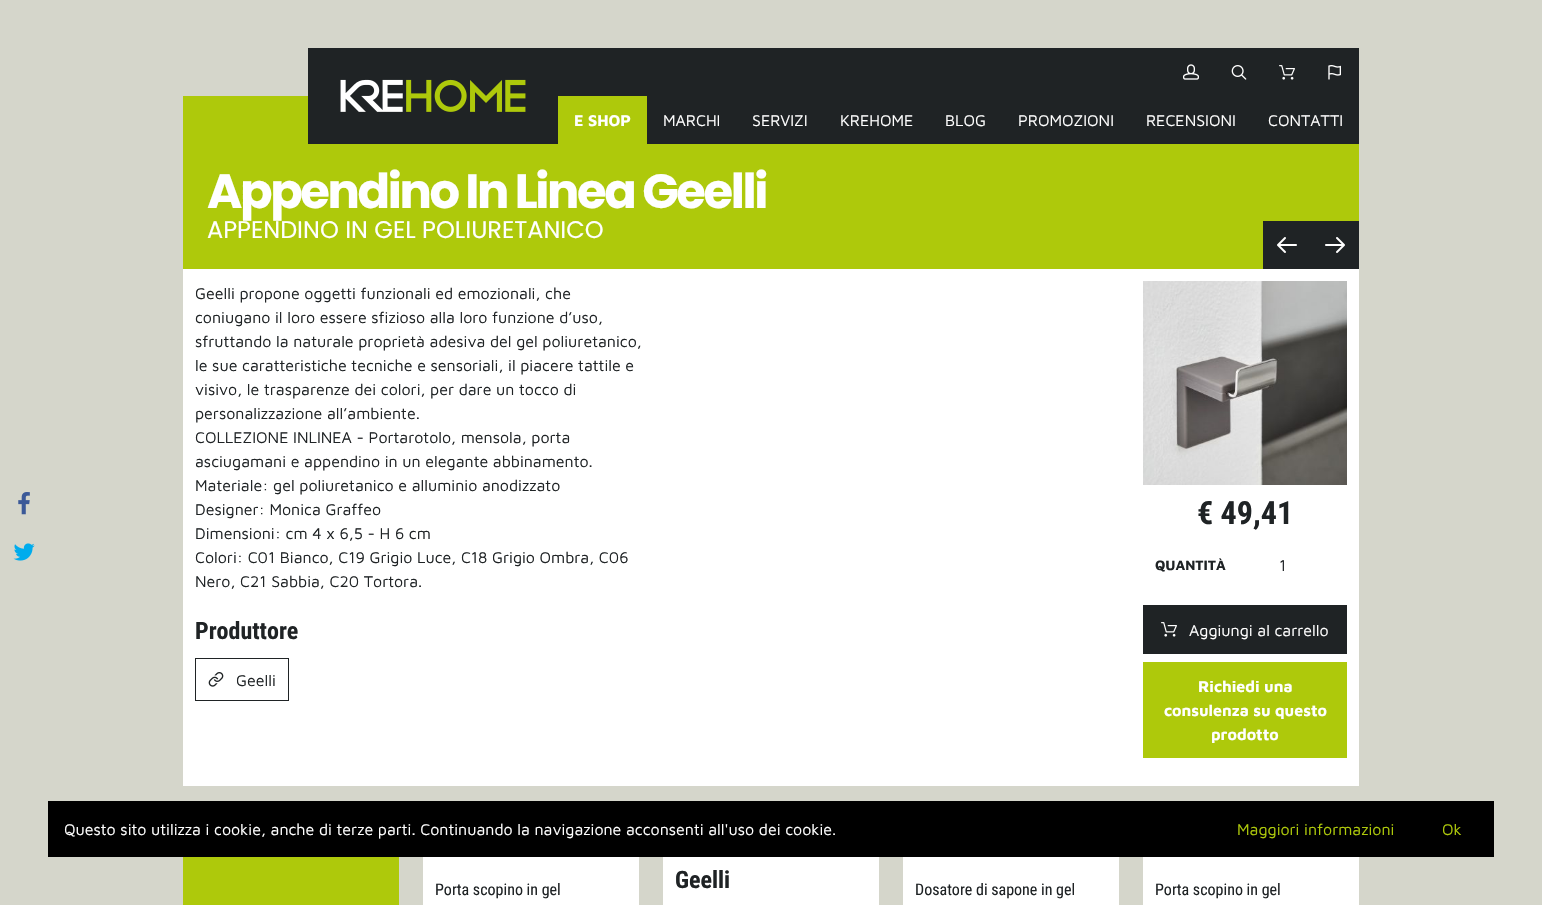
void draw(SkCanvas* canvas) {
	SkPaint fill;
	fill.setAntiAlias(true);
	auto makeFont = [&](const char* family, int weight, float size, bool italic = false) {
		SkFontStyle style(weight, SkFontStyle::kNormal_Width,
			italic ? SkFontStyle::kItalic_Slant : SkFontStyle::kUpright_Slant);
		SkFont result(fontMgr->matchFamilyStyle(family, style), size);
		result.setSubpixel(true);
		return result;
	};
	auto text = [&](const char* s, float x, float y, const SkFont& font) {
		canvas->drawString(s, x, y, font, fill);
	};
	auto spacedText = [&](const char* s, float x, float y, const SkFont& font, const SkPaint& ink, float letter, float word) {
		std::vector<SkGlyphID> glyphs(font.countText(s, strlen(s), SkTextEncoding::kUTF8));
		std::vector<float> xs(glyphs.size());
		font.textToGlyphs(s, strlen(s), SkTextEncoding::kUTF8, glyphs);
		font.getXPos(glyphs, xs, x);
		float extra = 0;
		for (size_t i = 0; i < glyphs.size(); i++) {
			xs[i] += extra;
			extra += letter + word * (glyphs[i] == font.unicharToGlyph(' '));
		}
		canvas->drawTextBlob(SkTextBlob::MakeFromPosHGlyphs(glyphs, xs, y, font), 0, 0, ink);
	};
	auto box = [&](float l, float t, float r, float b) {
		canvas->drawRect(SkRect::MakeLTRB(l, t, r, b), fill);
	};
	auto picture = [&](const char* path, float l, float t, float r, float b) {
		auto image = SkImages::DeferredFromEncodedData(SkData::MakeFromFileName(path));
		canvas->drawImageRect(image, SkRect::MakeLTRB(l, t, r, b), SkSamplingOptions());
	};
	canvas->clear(0xFFD5D6CB);
	fill.setColor(0xFFAEC90B);
	box(183, 96, 1359, 269);
	fill.setColor(0xFF1F2325);
	box(308, 48, 558, 144);
	picture("image0.png", 340, 79, 526, 112);
	box(558, 48, 1359, 96);
	picture("image1.png", 1183, 64, 1199, 80);
	picture("image2.png", 1231, 65, 1247, 80);
	picture("image3.png", 1279, 65, 1295, 80);
	picture("image4.png", 1328, 65, 1341, 80);
	box(647, 96, 1359, 144);
	box(1263, 221, 1359, 269);
	picture("image5.png", 1277, 237, 1297, 253);
	picture("image6.png", 1325, 237, 1345, 253);
	picture("image7.png", 18, 492, 30, 515);
	picture("image8.png", 13, 543, 35, 561);
	fill.setColor(0xFFFFFFFF);
	box(183, 269, 1359, 786);
	fill.setStyle(SkPaint::kStroke_Style);
	fill.setStrokeWidth(1);
	fill.setColor(0xFF1F2325);
	canvas->drawRect(SkRect::MakeLTRB(195.5f, 658.5f, 288.5f, 700.5f), fill);
	picture("image9.png", 208, 672, 224, 687);
	picture("image10.png", 1143, 281, 1347, 485);
	fill.setStyle(SkPaint::kFill_Style);
	box(1143, 605, 1347, 654);
	picture("image3.png", 1161, 622, 1177, 637);
	fill.setColor(0xFFAEC90B);
	box(1143, 662, 1347, 758);
	box(183, 857, 399, 905);
	fill.setColor(0xFFFFFFFF);
	box(663, 857, 879, 905);
	box(423, 857, 639, 905);
	box(903, 857, 1119, 905);
	box(1143, 857, 1359, 905);
	fill.setColor(0xFF000000);
	box(48, 801, 1494, 857);
	auto font1 = makeFont("Maven Pro", 700, 16);
	fill.setColor(0xFFFFFFFF);
	text("E SHOP", 574, 126, font1);
	auto font2 = makeFont("Maven Pro", 400, 16);
	text("MARCHI", 663, 126, font2);
	text("SERVIZI", 752, 126, font2);
	text("KREHOME", 840, 126, font2);
	text("BLOG", 945, 126, font2);
	text("PROMOZIONI", 1018, 126, font2);
	text("RECENSIONI", 1146, 126, font2);
	text("CONTATTI", 1268, 126, font2);
	auto font3 = makeFont("Poppins", 700, 48);
	spacedText("Appendino In Linea Geelli", 207, 208, font3, fill, -2.4f, 0);
	auto font4 = makeFont("Poppins", 400, 24);
	text("APPENDINO IN GEL POLIURETANICO", 207, 238, font4);
	fill.setColor(0xFF1F2325);
	text("Geelli propone oggetti funzionali ed emozionali, che", 195, 299, font2);
	text("coniugano il loro essere sfizioso alla loro funzione d’uso,", 195, 323, font2);
	text("sfruttando la naturale proprietà adesiva del gel poliuretanico,", 195, 347, font2);
	text("le sue caratteristiche tecniche e sensoriali, il piacere tattile e", 195, 371, font2);
	text("visivo, le trasparenze dei colori, per dare un tocco di", 195, 395, font2);
	text("personalizzazione all’ambiente.", 195, 419, font2);
	text("COLLEZIONE INLINEA - Portarotolo, mensola, porta", 195, 443, font2);
	text("asciugamani e appendino in un elegante abbinamento.", 195, 467, font2);
	text("Materiale: gel poliuretanico e alluminio anodizzato", 195, 491, font2);
	text("Designer: Monica Graffeo", 195, 515, font2);
	text("Dimensioni: cm 4 x 6,5 - H 6 cm", 195, 539, font2);
	text("Colori: C01 Bianco, C19 Grigio Luce, C18 Grigio Ombra, C06", 195, 563, font2);
	text("Nero, C21 Sabbia, C20 Tortora.", 195, 587, font2);
	auto font5 = makeFont("Roboto Condensed", 700, 24);
	text("Produttore", 195, 639, font5);
	text("Geelli", 236, 686, font2);
	auto font6 = makeFont("Roboto Condensed", 700, 32);
	text("€ 49,41", 1197, 524, font6);
	auto font7 = makeFont("Maven Pro", 700, 14);
	text("QUANTITÀ", 1155, 570, font7);
	text("1", 1279, 571, font2);
	fill.setColor(0xFFFFFFFF);
	text("Aggiungi al carrello", 1189, 636, font2);
	text("Richiedi una", 1198, 692, font1);
	text("consulenza su questo", 1164, 716, font1);
	text("prodotto", 1211, 740, font1);
	fill.setColor(0xFF1F2325);
	text("Geelli", 675, 888, font5);
	auto font8 = makeFont("Roboto Condensed", 400, 16);
	text("Porta scopino in gel", 435, 895, font8);
	text("Dosatore di sapone in gel", 915, 895, font8);
	text("Porta scopino in gel", 1155, 895, font8);
	fill.setColor(0xFFFFFFFF);
	text("Questo sito utilizza i cookie, anche di terze parti. Continuando la navigazione acconsenti all'uso dei cookie.", 64, 835, font2);
	fill.setColor(0xFFAEC90B);
	text("Maggiori informazioni", 1237, 835, font2);
	text("Ok", 1442, 835, font2);
}
